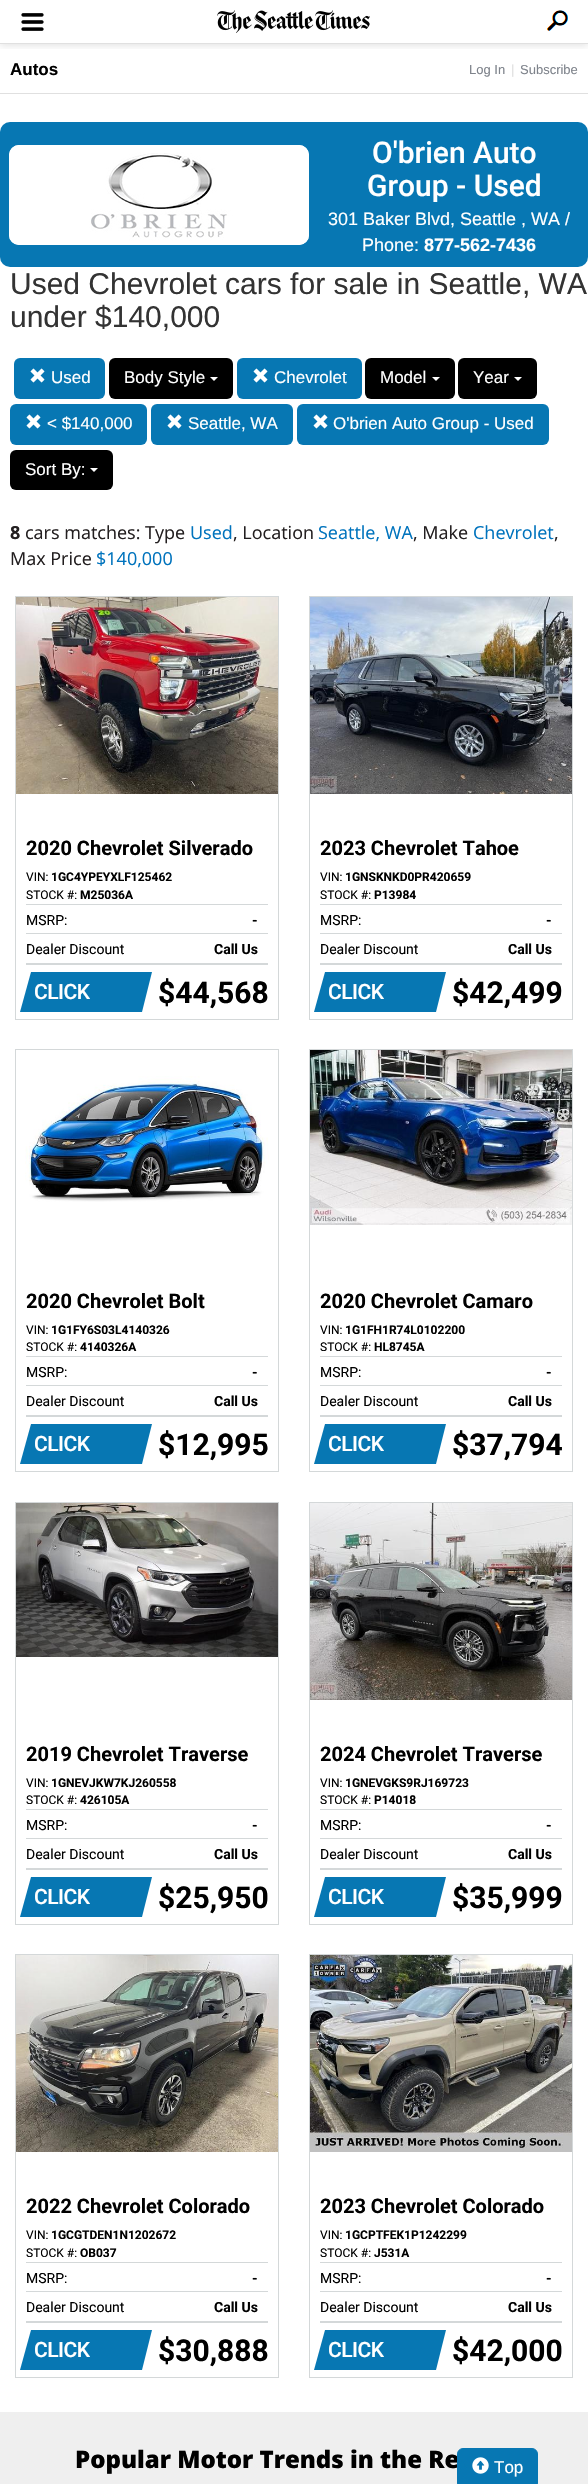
void draw(SkCanvas* canvas) {
	SkPaint fill;
	fill.setAntiAlias(true);
	auto makeFont = [&](const char* family, int weight, float size, bool italic = false) {
		SkFontStyle style(weight, SkFontStyle::kNormal_Width,
			italic ? SkFontStyle::kItalic_Slant : SkFontStyle::kUpright_Slant);
		SkFont result(fontMgr->matchFamilyStyle(family, style), size);
		result.setSubpixel(true);
		return result;
	};
	auto text = [&](const char* s, float x, float y, const SkFont& font) {
		canvas->drawString(s, x, y, font, fill);
	};
	auto spacedText = [&](const char* s, float x, float y, const SkFont& font, const SkPaint& ink, float letter, float word) {
		std::vector<SkGlyphID> glyphs(font.countText(s, strlen(s), SkTextEncoding::kUTF8));
		std::vector<float> xs(glyphs.size());
		font.textToGlyphs(s, strlen(s), SkTextEncoding::kUTF8, glyphs);
		font.getXPos(glyphs, xs, x);
		float extra = 0;
		for (size_t i = 0; i < glyphs.size(); i++) {
			xs[i] += extra;
			extra += letter + word * (glyphs[i] == font.unicharToGlyph(' '));
		}
		canvas->drawTextBlob(SkTextBlob::MakeFromPosHGlyphs(glyphs, xs, y, font), 0, 0, ink);
	};
	auto box = [&](float l, float t, float r, float b) {
		canvas->drawRect(SkRect::MakeLTRB(l, t, r, b), fill);
	};
	auto roundBox = [&](float l, float t, float r, float b, float radius) {
		canvas->drawRoundRect(SkRect::MakeLTRB(l, t, r, b), radius, radius, fill);
	};
	auto picture = [&](const char* path, float l, float t, float r, float b) {
		auto image = SkImages::DeferredFromEncodedData(SkData::MakeFromFileName(path));
		canvas->drawImageRect(image, SkRect::MakeLTRB(l, t, r, b), SkSamplingOptions());
	};
	canvas->clear(0xFFFFFFFF);
	canvas->save();
	canvas->clipRect(SkRect::MakeLTRB(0, 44, 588, 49));
	fill.setColor(0x1A000000);
	fill.setMaskFilter(SkMaskFilter::MakeBlur(kNormal_SkBlurStyle, 3.5f));
	canvas->drawRect(SkRect::MakeLTRB(0, 2, 588, 46), fill);
	fill.setMaskFilter(nullptr);
	canvas->restore();
	fill.setColor(0xFFE0E0E0);
	box(0, 43, 588, 44);
	picture("image0.png", 21, 13, 44, 31);
	picture("image1.png", 217, 10, 370, 33);
	picture("image2.png", 547, 10, 568, 31);
	box(0, 93, 588, 94);
	fill.setColor(0xFF0777B3);
	roundBox(0, 122, 588, 267, 10);
	fill.setColor(0xFFFFFFFF);
	roundBox(9, 145, 309, 245, 10);
	picture("image3.png", 9, 145, 309, 245);
	fill.setColor(0xFF0777B3);
	roundBox(14, 358, 105, 399, 6);
	picture("image4.png", 30, 368, 45, 383);
	fill.setColor(0xFF000000);
	roundBox(109, 358, 233, 399, 6);
	fill.setColor(0xFFFFFFFF);
	canvas->drawPath(SkPathBuilder().moveTo(210, 377).lineTo(218, 377).lineTo(214, 381).close().detach(), fill);
	fill.setColor(0xFF0777B3);
	roundBox(237, 358, 362, 399, 6);
	picture("image4.png", 253, 368, 268, 383);
	fill.setColor(0xFF000000);
	roundBox(365, 358, 455, 399, 6);
	fill.setColor(0xFFFFFFFF);
	canvas->drawPath(SkPathBuilder().moveTo(432, 377).lineTo(440, 377).lineTo(436, 381).close().detach(), fill);
	fill.setColor(0xFF000000);
	roundBox(458, 358, 537, 399, 6);
	fill.setColor(0xFFFFFFFF);
	canvas->drawPath(SkPathBuilder().moveTo(514, 377).lineTo(522, 377).lineTo(518, 381).close().detach(), fill);
	fill.setColor(0xFF0777B3);
	roundBox(10, 404, 147, 445, 6);
	picture("image4.png", 26, 414, 41, 429);
	roundBox(151, 404, 293, 445, 6);
	picture("image4.png", 167, 414, 182, 429);
	roundBox(297, 404, 549, 445, 6);
	picture("image4.png", 313, 414, 328, 429);
	fill.setColor(0xFF000000);
	roundBox(10, 450, 113, 490, 6);
	fill.setColor(0xFFFFFFFF);
	canvas->drawPath(SkPathBuilder().moveTo(90, 468).lineTo(98, 468).lineTo(94, 472).close().detach(), fill);
	fill.setStyle(SkPaint::kStroke_Style);
	fill.setStrokeWidth(1);
	fill.setColor(0xFFD4D8D9);
	canvas->drawRect(SkRect::MakeLTRB(15.5f, 596.5f, 278.5f, 1019.5f), fill);
	picture("image5.png", 16, 597, 278, 794);
	fill.setStyle(SkPaint::kFill_Style);
	box(26, 904, 268, 905);
	box(26, 933, 268, 934);
	box(26, 963, 268, 965);
	fill.setColor(0xFF0777B3);
	canvas->drawPath(SkPathBuilder().moveTo(31, 972).lineTo(152, 972).lineTo(142, 1012).lineTo(20, 1012).close().detach(), fill);
	fill.setStyle(SkPaint::kStroke_Style);
	fill.setColor(0xFFD4D8D9);
	canvas->drawRect(SkRect::MakeLTRB(309.5f, 596.5f, 572.5f, 1019.5f), fill);
	picture("image6.png", 310, 597, 572, 794);
	fill.setStyle(SkPaint::kFill_Style);
	box(320, 904, 562, 905);
	box(320, 933, 562, 934);
	box(320, 963, 562, 965);
	fill.setColor(0xFF0777B3);
	canvas->drawPath(SkPathBuilder().moveTo(325, 972).lineTo(446, 972).lineTo(436, 1012).lineTo(314, 1012).close().detach(), fill);
	fill.setStyle(SkPaint::kStroke_Style);
	fill.setColor(0xFFD4D8D9);
	canvas->drawRect(SkRect::MakeLTRB(15.5f, 1049.5f, 278.5f, 1471.5f), fill);
	picture("image7.png", 25, 1076, 269, 1202);
	fill.setStyle(SkPaint::kFill_Style);
	box(26, 1356, 268, 1357);
	box(26, 1385, 268, 1386);
	box(26, 1415, 268, 1417);
	fill.setColor(0xFF0777B3);
	canvas->drawPath(SkPathBuilder().moveTo(31, 1424).lineTo(152, 1424).lineTo(142, 1464).lineTo(20, 1464).close().detach(), fill);
	fill.setStyle(SkPaint::kStroke_Style);
	fill.setColor(0xFFD4D8D9);
	canvas->drawRect(SkRect::MakeLTRB(309.5f, 1049.5f, 572.5f, 1471.5f), fill);
	picture("image8.png", 310, 1050, 572, 1225);
	fill.setStyle(SkPaint::kFill_Style);
	box(320, 1356, 562, 1357);
	box(320, 1385, 562, 1386);
	box(320, 1415, 562, 1417);
	fill.setColor(0xFF0777B3);
	canvas->drawPath(SkPathBuilder().moveTo(325, 1424).lineTo(446, 1424).lineTo(436, 1464).lineTo(314, 1464).close().detach(), fill);
	fill.setStyle(SkPaint::kStroke_Style);
	fill.setColor(0xFFD4D8D9);
	canvas->drawRect(SkRect::MakeLTRB(15.5f, 1502.5f, 278.5f, 1924.5f), fill);
	picture("image9.png", 16, 1503, 278, 1657);
	fill.setStyle(SkPaint::kFill_Style);
	box(26, 1809, 268, 1810);
	box(26, 1838, 268, 1839);
	box(26, 1868, 268, 1870);
	fill.setColor(0xFF0777B3);
	canvas->drawPath(SkPathBuilder().moveTo(31, 1877).lineTo(152, 1877).lineTo(142, 1917).lineTo(20, 1917).close().detach(), fill);
	fill.setStyle(SkPaint::kStroke_Style);
	fill.setColor(0xFFD4D8D9);
	canvas->drawRect(SkRect::MakeLTRB(309.5f, 1502.5f, 572.5f, 1924.5f), fill);
	picture("image10.png", 310, 1503, 572, 1700);
	fill.setStyle(SkPaint::kFill_Style);
	box(320, 1809, 562, 1810);
	box(320, 1838, 562, 1839);
	box(320, 1868, 562, 1870);
	fill.setColor(0xFF0777B3);
	canvas->drawPath(SkPathBuilder().moveTo(325, 1877).lineTo(446, 1877).lineTo(436, 1917).lineTo(314, 1917).close().detach(), fill);
	fill.setStyle(SkPaint::kStroke_Style);
	fill.setColor(0xFFD4D8D9);
	canvas->drawRect(SkRect::MakeLTRB(15.5f, 1954.5f, 278.5f, 2377.5f), fill);
	picture("image11.png", 16, 1955, 278, 2152);
	fill.setStyle(SkPaint::kFill_Style);
	box(26, 2262, 268, 2263);
	box(26, 2291, 268, 2292);
	box(26, 2321, 268, 2323);
	fill.setColor(0xFF0777B3);
	canvas->drawPath(SkPathBuilder().moveTo(31, 2330).lineTo(152, 2330).lineTo(142, 2370).lineTo(20, 2370).close().detach(), fill);
	fill.setStyle(SkPaint::kStroke_Style);
	fill.setColor(0xFFD4D8D9);
	canvas->drawRect(SkRect::MakeLTRB(309.5f, 1954.5f, 572.5f, 2377.5f), fill);
	picture("image12.png", 310, 1955, 572, 2152);
	fill.setStyle(SkPaint::kFill_Style);
	box(320, 2262, 562, 2263);
	box(320, 2291, 562, 2292);
	box(320, 2321, 562, 2323);
	fill.setColor(0xFF0777B3);
	canvas->drawPath(SkPathBuilder().moveTo(325, 2330).lineTo(446, 2330).lineTo(436, 2370).lineTo(314, 2370).close().detach(), fill);
	fill.setColor(0xFFEFEFEF);
	box(0, 2412, 588, 2484);
	auto font1 = makeFont("Liberation Sans", 700, 17);
	fill.setColor(0xFF000000);
	text("Autos", 10, 75, font1);
	auto font2 = makeFont("Liberation Sans", 400, 13);
	fill.setColor(0xFF7E838B);
	text("Log In", 469, 74, font2);
	fill.setColor(0xFFE0E0E0);
	text("|", 511, 74, font2);
	fill.setColor(0xFF7E838B);
	text("Subscribe", 520, 74, font2);
	auto font3 = makeFont("Roboto", 500, 30);
	fill.setColor(0xFFFFFFFF);
	text("O'brien Auto", 372, 163, font3);
	text("Group - Used", 367, 196, font3);
	auto font4 = makeFont("Liberation Sans", 400, 18);
	text("301 Baker Blvd, Seattle , WA /", 328, 225, font4);
	text("Phone:", 362, 251, font4);
	auto font5 = makeFont("Liberation Sans", 700, 18);
	text("877-562-7436", 424, 251, font5);
	auto font6 = makeFont("Liberation Sans", 400, 30);
	fill.setColor(0xFF333333);
	text("Used Chevrolet cars for sale in Seattle, WA", 10, 294, font6);
	text("under $140,000", 10, 327, font6);
	auto font7 = makeFont("Liberation Sans", 400, 17);
	fill.setColor(0xFFFFFFFF);
	text("Used", 51, 383, font7);
	text("Body Style", 124, 383, font7);
	text("Chevrolet", 274, 383, font7);
	text("Model", 380, 383, font7);
	text("Year", 473, 383, font7);
	text("< $140,000", 47, 429, font7);
	text("Seattle, WA", 188, 429, font7);
	text("O'brien Auto Group - Used", 333, 429, font7);
	text("Sort By:", 25, 475, font7);
	auto font8 = makeFont("Open Sans", 700, 18);
	fill.setColor(0xFF231F20);
	text("8", 10, 539, font8);
	auto font9 = makeFont("Open Sans", 400, 18);
	text("cars matches: Type", 25, 539, font9);
	fill.setColor(0xFF0073BD);
	text("Used", 190, 539, font9);
	fill.setColor(0xFF231F20);
	text(", Location", 233, 539, font9);
	fill.setColor(0xFF0073BD);
	text("Seattle, WA", 318, 539, font9);
	fill.setColor(0xFF231F20);
	text(", Make", 413, 539, font9);
	fill.setColor(0xFF0073BD);
	text("Chevrolet", 473, 539, font9);
	fill.setColor(0xFF231F20);
	text(",", 554, 539, font9);
	text("Max Price", 10, 565, font9);
	fill.setColor(0xFF0073BD);
	text("$140,000", 96, 565, font9);
	auto font10 = makeFont("Roboto", 700, 20);
	fill.setColor(0xFF000000);
	text("2020 Chevrolet Silverado", 26, 855, font10);
	auto font11 = makeFont("Roboto", 400, 12);
	text("VIN:", 26, 881, font11);
	auto font12 = makeFont("Roboto", 700, 12);
	text("1GC4YPEYXLF125462", 51, 881, font12);
	text("STOCK #:", 26, 899, font11);
	text("M25036A", 80, 899, font12);
	auto font13 = makeFont("Roboto", 400, 14);
	text("MSRP:", 26, 925, font13);
	auto font14 = makeFont("Roboto", 700, 14);
	text("-", 252, 925, font14);
	text("Dealer Discount", 26, 954, font13);
	text("Call Us", 214, 954, font14);
	auto font15 = makeFont("Roboto", 500, 21);
	fill.setColor(0xFFFFFFFF);
	spacedText("CLICK", 34, 999, font15, fill, -0.5f, 0);
	auto font16 = makeFont("Roboto", 700, 30);
	fill.setColor(0xFF000000);
	text("$44,568", 158, 1003, font16);
	text("2023 Chevrolet Tahoe", 320, 855, font10);
	text("VIN:", 320, 881, font11);
	text("1GNSKNKD0PR420659", 345, 881, font12);
	text("STOCK #:", 320, 899, font11);
	text("P13984", 374, 899, font12);
	text("MSRP:", 320, 925, font13);
	text("-", 546, 925, font14);
	text("Dealer Discount", 320, 954, font13);
	text("Call Us", 508, 954, font14);
	fill.setColor(0xFFFFFFFF);
	spacedText("CLICK", 328, 999, font15, fill, -0.5f, 0);
	fill.setColor(0xFF000000);
	text("$42,499", 452, 1003, font16);
	text("2020 Chevrolet Bolt", 26, 1308, font10);
	text("VIN:", 26, 1334, font11);
	text("1G1FY6S03L4140326", 51, 1334, font12);
	text("STOCK #:", 26, 1351, font11);
	text("4140326A", 80, 1351, font12);
	text("MSRP:", 26, 1377, font13);
	text("-", 252, 1377, font14);
	text("Dealer Discount", 26, 1406, font13);
	text("Call Us", 214, 1406, font14);
	fill.setColor(0xFFFFFFFF);
	spacedText("CLICK", 34, 1451, font15, fill, -0.5f, 0);
	fill.setColor(0xFF000000);
	text("$12,995", 158, 1455, font16);
	text("2020 Chevrolet Camaro", 320, 1308, font10);
	text("VIN:", 320, 1334, font11);
	text("1G1FH1R74L0102200", 345, 1334, font12);
	text("STOCK #:", 320, 1351, font11);
	text("HL8745A", 374, 1351, font12);
	text("MSRP:", 320, 1377, font13);
	text("-", 546, 1377, font14);
	text("Dealer Discount", 320, 1406, font13);
	text("Call Us", 508, 1406, font14);
	fill.setColor(0xFFFFFFFF);
	spacedText("CLICK", 328, 1451, font15, fill, -0.5f, 0);
	fill.setColor(0xFF000000);
	text("$37,794", 452, 1455, font16);
	text("2019 Chevrolet Traverse", 26, 1761, font10);
	text("VIN:", 26, 1787, font11);
	text("1GNEVJKW7KJ260558", 51, 1787, font12);
	text("STOCK #:", 26, 1804, font11);
	text("426105A", 80, 1804, font12);
	text("MSRP:", 26, 1830, font13);
	text("-", 252, 1830, font14);
	text("Dealer Discount", 26, 1859, font13);
	text("Call Us", 214, 1859, font14);
	fill.setColor(0xFFFFFFFF);
	spacedText("CLICK", 34, 1904, font15, fill, -0.5f, 0);
	fill.setColor(0xFF000000);
	text("$25,950", 158, 1908, font16);
	text("2024 Chevrolet Traverse", 320, 1761, font10);
	text("VIN:", 320, 1787, font11);
	text("1GNEVGKS9RJ169723", 345, 1787, font12);
	text("STOCK #:", 320, 1804, font11);
	text("P14018", 374, 1804, font12);
	text("MSRP:", 320, 1830, font13);
	text("-", 546, 1830, font14);
	text("Dealer Discount", 320, 1859, font13);
	text("Call Us", 508, 1859, font14);
	fill.setColor(0xFFFFFFFF);
	spacedText("CLICK", 328, 1904, font15, fill, -0.5f, 0);
	fill.setColor(0xFF000000);
	text("$35,999", 452, 1908, font16);
	text("2022 Chevrolet Colorado", 26, 2213, font10);
	text("VIN:", 26, 2239, font11);
	text("1GCGTDEN1N1202672", 51, 2239, font12);
	text("STOCK #:", 26, 2257, font11);
	text("OB037", 80, 2257, font12);
	text("MSRP:", 26, 2283, font13);
	text("-", 252, 2283, font14);
	text("Dealer Discount", 26, 2312, font13);
	text("Call Us", 214, 2312, font14);
	fill.setColor(0xFFFFFFFF);
	spacedText("CLICK", 34, 2357, font15, fill, -0.5f, 0);
	fill.setColor(0xFF000000);
	text("$30,888", 158, 2361, font16);
	text("2023 Chevrolet Colorado", 320, 2213, font10);
	text("VIN:", 320, 2239, font11);
	text("1GCPTFEK1P1242299", 345, 2239, font12);
	text("STOCK #:", 320, 2257, font11);
	text("J531A", 374, 2257, font12);
	text("MSRP:", 320, 2283, font13);
	text("-", 546, 2283, font14);
	text("Dealer Discount", 320, 2312, font13);
	text("Call Us", 508, 2312, font14);
	fill.setColor(0xFFFFFFFF);
	spacedText("CLICK", 328, 2357, font15, fill, -0.5f, 0);
	fill.setColor(0xFF000000);
	text("$42,000", 452, 2361, font16);
	auto font17 = makeFont("Open Sans", 800, 24);
	text("Popular Motor Trends in the Re", 75, 2468, font17);
	fill.setColor(0xFF0777B3);
	canvas->drawRoundRect(SkRect::MakeLTRB(457.5f, 2448.5f, 537.5f, 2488.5f), 5.5f, 5.5f, fill);
	fill.setStyle(SkPaint::kStroke_Style);
	canvas->drawRoundRect(SkRect::MakeLTRB(457.5f, 2448.5f, 537.5f, 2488.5f), 5.5f, 5.5f, fill);
	picture("image13.png", 472, 2457, 489, 2474);
	fill.setStyle(SkPaint::kFill_Style);
	fill.setColor(0xFFFFFFFF);
	text("Top", 494, 2473, font7);
}
